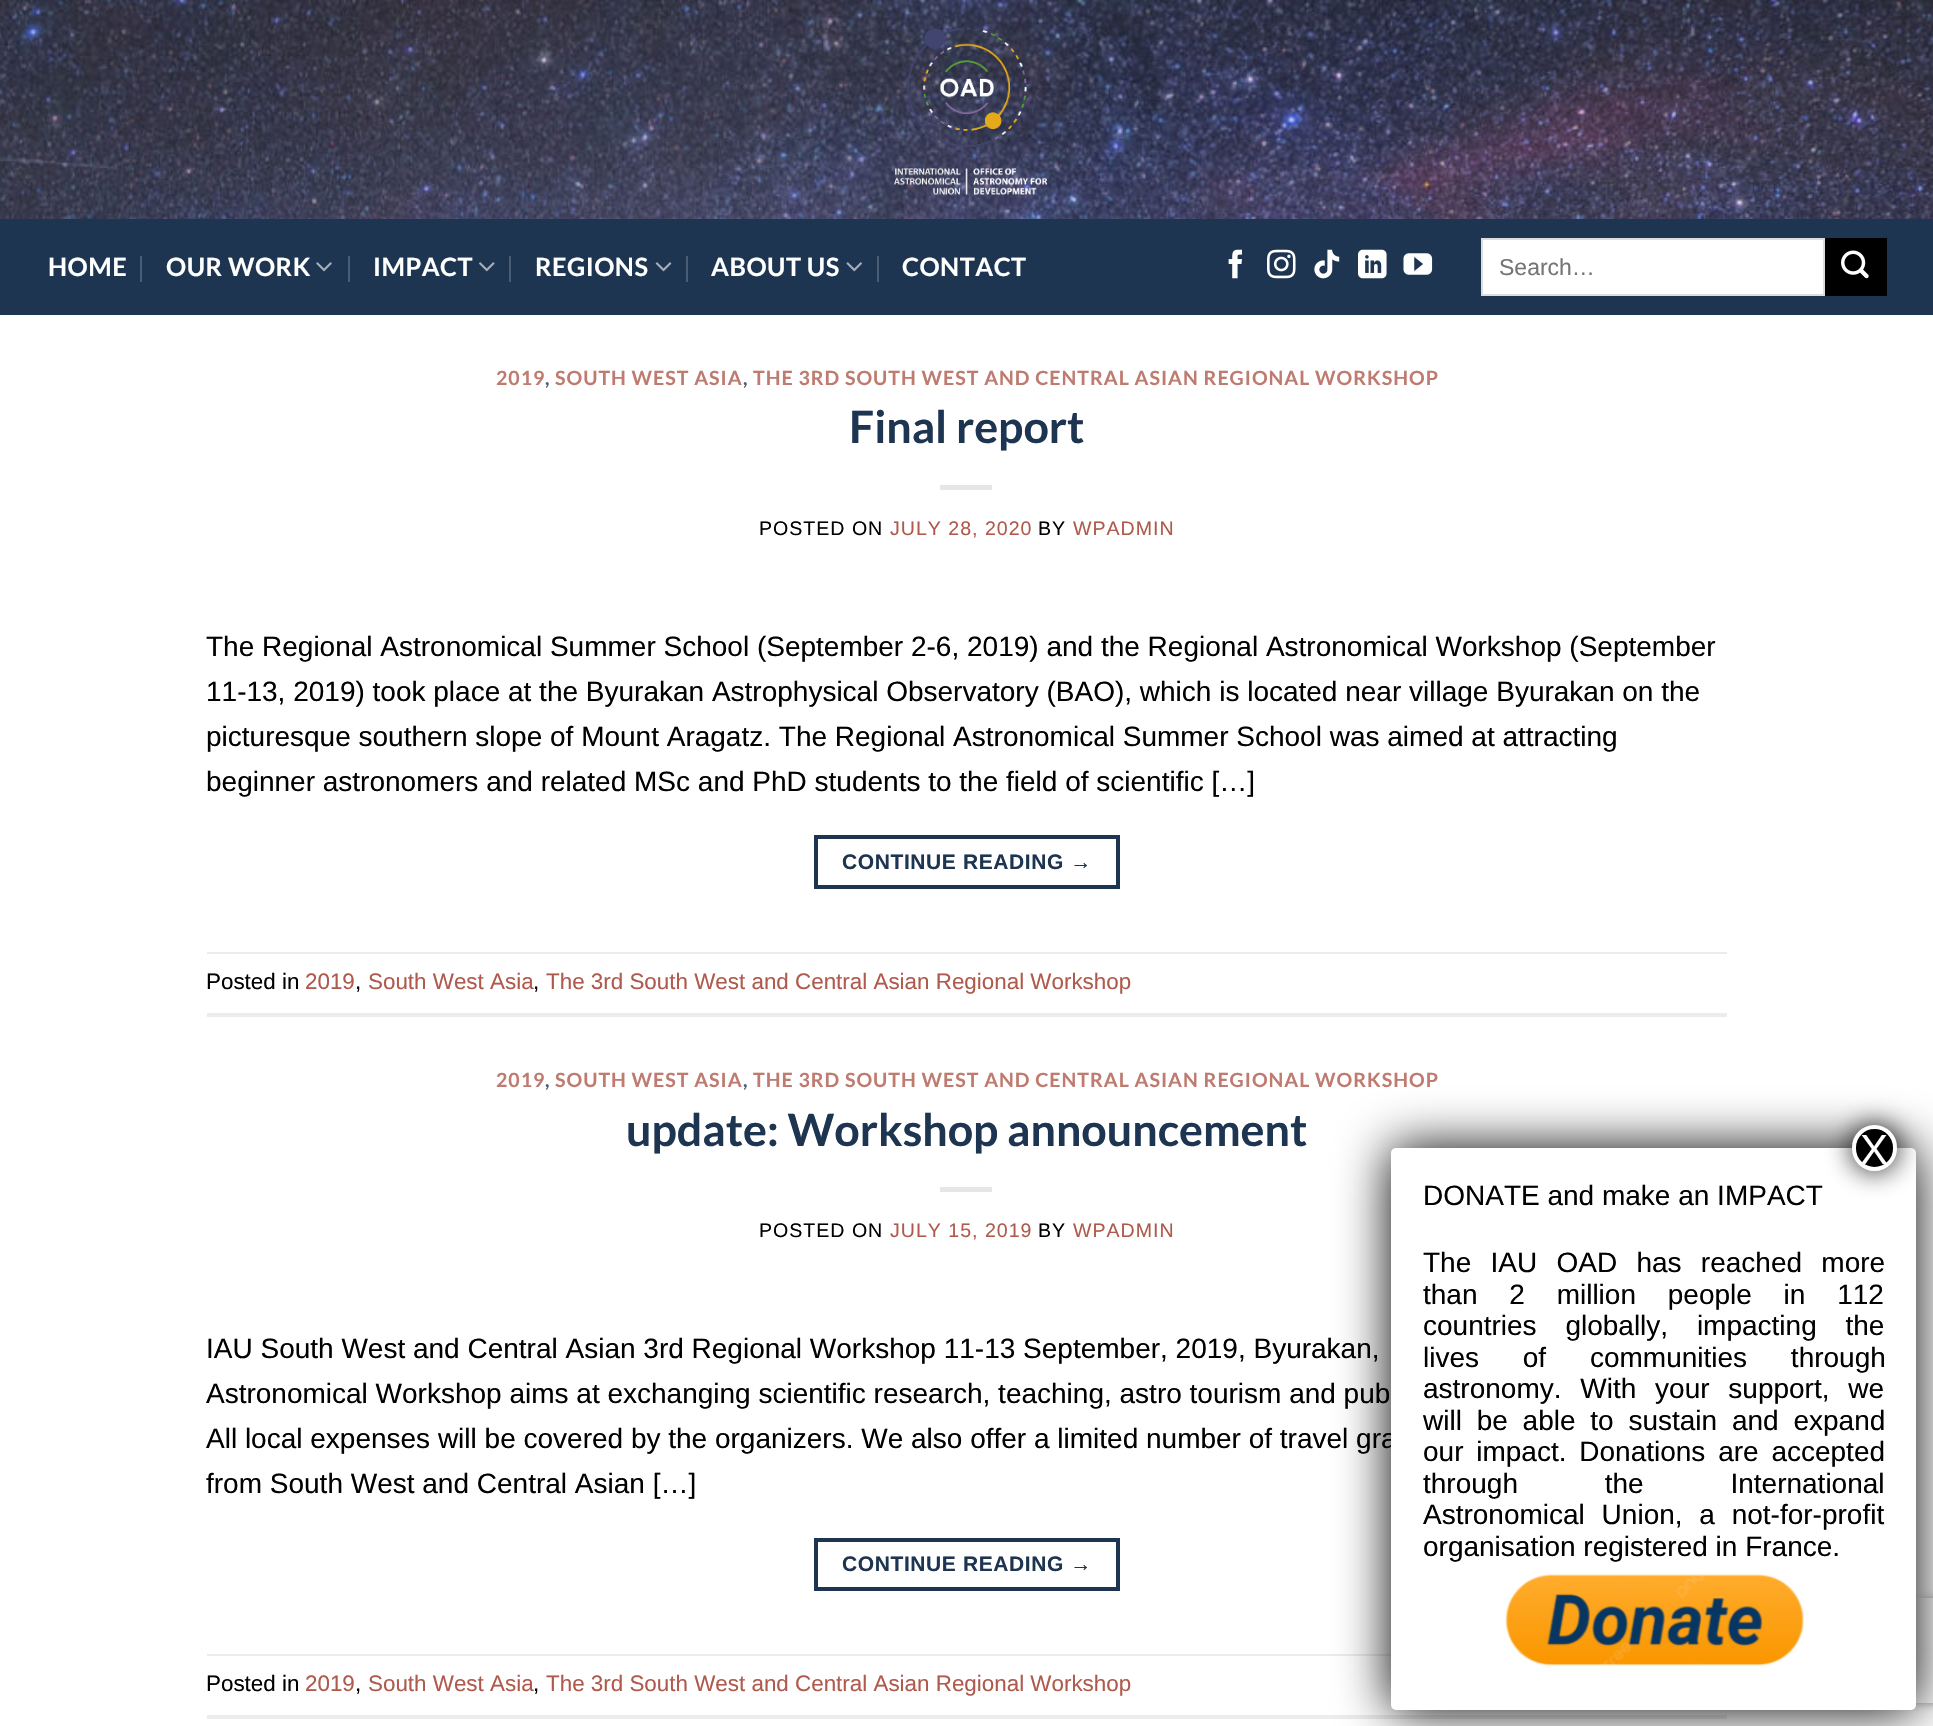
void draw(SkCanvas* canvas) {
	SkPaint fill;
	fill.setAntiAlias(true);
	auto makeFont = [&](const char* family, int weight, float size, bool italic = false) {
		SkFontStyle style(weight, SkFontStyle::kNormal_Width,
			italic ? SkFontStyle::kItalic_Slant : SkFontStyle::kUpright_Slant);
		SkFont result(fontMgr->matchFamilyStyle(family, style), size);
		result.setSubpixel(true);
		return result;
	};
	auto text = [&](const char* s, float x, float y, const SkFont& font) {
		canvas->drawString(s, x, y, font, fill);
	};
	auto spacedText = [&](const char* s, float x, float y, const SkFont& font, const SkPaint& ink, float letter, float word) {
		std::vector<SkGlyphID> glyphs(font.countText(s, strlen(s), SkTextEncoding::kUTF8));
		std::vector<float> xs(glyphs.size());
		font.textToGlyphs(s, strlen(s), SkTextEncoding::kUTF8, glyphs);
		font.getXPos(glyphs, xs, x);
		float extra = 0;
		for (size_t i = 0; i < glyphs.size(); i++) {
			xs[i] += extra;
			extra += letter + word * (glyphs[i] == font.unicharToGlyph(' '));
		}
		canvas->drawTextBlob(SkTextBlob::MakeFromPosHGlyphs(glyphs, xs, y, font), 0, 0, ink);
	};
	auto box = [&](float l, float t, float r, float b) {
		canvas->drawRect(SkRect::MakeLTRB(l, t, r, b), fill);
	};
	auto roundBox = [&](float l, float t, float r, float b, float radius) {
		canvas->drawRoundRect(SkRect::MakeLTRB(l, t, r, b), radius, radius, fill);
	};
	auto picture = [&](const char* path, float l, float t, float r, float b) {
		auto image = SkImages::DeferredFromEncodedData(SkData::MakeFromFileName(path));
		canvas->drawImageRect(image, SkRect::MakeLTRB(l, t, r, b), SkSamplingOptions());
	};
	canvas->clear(0xFFFFFFFF);
	picture("image0.png", 0, 0, 1933, 219);
	picture("image1.png", 893, 27, 1048, 195);
	fill.setColor(0xFF1E3551);
	box(0, 219, 1933, 315);
	fill.setColor(0xFF4B5D74);
	box(140, 256, 142, 282);
	picture("image2.png", 316, 262, 332, 272);
	box(348, 256, 350, 282);
	picture("image3.png", 479, 262, 495, 272);
	box(509, 256, 511, 282);
	picture("image4.png", 655, 262, 672, 272);
	box(686, 256, 688, 282);
	picture("image5.png", 846, 262, 862, 272);
	box(877, 256, 879, 282);
	picture("image6.png", 1228, 249, 1242, 279);
	picture("image7.png", 1267, 249, 1296, 279);
	picture("image8.png", 1314, 249, 1340, 279);
	picture("image9.png", 1358, 249, 1387, 279);
	picture("image10.png", 1403, 253, 1433, 275);
	fill.setColor(0xFFFFFFFF);
	canvas->drawRect(SkRect::MakeLTRB(1482, 239, 1824, 295), fill);
	fill.setStyle(SkPaint::kStroke_Style);
	fill.setStrokeWidth(2);
	fill.setColor(0xFFDDDDDD);
	canvas->drawRect(SkRect::MakeLTRB(1482, 239, 1824, 295), fill);
	fill.setStyle(SkPaint::kFill_Style);
	fill.setColor(0xFF000000);
	box(1825, 238, 1887, 296);
	picture("image11.png", 1841, 250, 1869, 279);
	fill.setColor(0xFFE6E6E6);
	box(940, 485, 992, 490);
	fill.setStyle(SkPaint::kStroke_Style);
	fill.setStrokeWidth(4);
	fill.setColor(0xFF1E3551);
	canvas->drawRect(SkRect::MakeLTRB(816, 837, 1118, 887), fill);
	fill.setStyle(SkPaint::kFill_Style);
	fill.setColor(0xFFECECEC);
	box(207, 952, 1727, 954);
	box(207, 1013, 1727, 1017);
	fill.setColor(0xFFE6E6E6);
	box(940, 1187, 992, 1192);
	fill.setStyle(SkPaint::kStroke_Style);
	fill.setColor(0xFF1E3551);
	canvas->drawRect(SkRect::MakeLTRB(816, 1540, 1118, 1589), fill);
	fill.setStyle(SkPaint::kFill_Style);
	fill.setColor(0xFFECECEC);
	box(207, 1654, 1391, 1656);
	box(207, 1715, 1727, 1719);
	fill.setColor(0xFF020202);
	fill.setMaskFilter(SkMaskFilter::MakeBlur(kNormal_SkBlurStyle, 26));
	canvas->drawRoundRect(SkRect::MakeLTRB(1391, 1148, 1916, 1710), 5, 5, fill);
	fill.setMaskFilter(nullptr);
	canvas->save();
	canvas->clipPath(SkPathBuilder(SkPathFillType::kEvenOdd).moveTo(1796, 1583).lineTo(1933, 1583).lineTo(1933, 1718).lineTo(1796, 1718).close().moveTo(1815, 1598).lineTo(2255, 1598).cubicTo(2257, 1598, 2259, 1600, 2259, 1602).lineTo(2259, 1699).cubicTo(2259, 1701, 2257, 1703, 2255, 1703).lineTo(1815, 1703).cubicTo(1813, 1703, 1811, 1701, 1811, 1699).lineTo(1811, 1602).cubicTo(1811, 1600, 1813, 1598, 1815, 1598).close().detach(), true);
	fill.setColor(0xFF808080);
	fill.setMaskFilter(SkMaskFilter::MakeBlur(kNormal_SkBlurStyle, 4.5f));
	canvas->drawRoundRect(SkRect::MakeLTRB(1811, 1598, 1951, 1703), 4, 4, fill);
	fill.setMaskFilter(nullptr);
	canvas->restore();
	auto font1 = makeFont("Lato", 700, 25.25f);
	fill.setColor(0xFFFFFFFF);
	spacedText("HOME", 48, 276, font1, fill, 0.5f, 0);
	spacedText("OUR WORK", 166, 276, font1, fill, 0.5f, 0);
	spacedText("IMPACT", 373, 276, font1, fill, 0.5f, 0);
	spacedText("REGIONS", 535, 276, font1, fill, 0.5f, 0);
	spacedText("ABOUT US", 711, 276, font1, fill, 0.5f, 0);
	spacedText("CONTACT", 902, 276, font1, fill, 0.5f, 0);
	auto font2 = makeFont("Liberation Sans", 400, 23);
	fill.setColor(0xFF757575);
	text("Search…", 1499, 275, font2);
	auto font3 = makeFont("Lato", 700, 19.6f);
	fill.setColor(0xFFBF7B70);
	spacedText("2019", 496, 385, font3, fill, 0.98f, 0);
	fill.setColor(0xFF4B5D74);
	spacedText(",", 545, 385, font3, fill, 0.98f, 0);
	fill.setColor(0xFFBF7B70);
	spacedText("SOUTH WEST ASIA", 555, 385, font3, fill, 0.98f, 0);
	fill.setColor(0xFF4B5D74);
	spacedText(",", 743, 385, font3, fill, 0.98f, 0);
	fill.setColor(0xFFBF7B70);
	spacedText("THE 3RD SOUTH WEST AND CENTRAL ASIAN REGIONAL WORKSHOP", 753, 385, font3, fill, 0.98f, 0);
	auto font4 = makeFont("Lato", 700, 44.75f);
	fill.setColor(0xFF1E3551);
	text("Final report", 849, 443, font4);
	auto font5 = makeFont("Liberation Sans", 400, 19.6f);
	fill.setColor(0xFF000000);
	spacedText("POSTED ON", 759, 535, font5, fill, 0.98f, 0);
	fill.setColor(0xFFAF5A4C);
	spacedText("JULY 28, 2020", 890, 535, font5, fill, 0.98f, 0);
	fill.setColor(0xFF000000);
	spacedText("BY", 1038, 535, font5, fill, 0.98f, 0);
	fill.setColor(0xFFAF5A4C);
	spacedText("WPADMIN", 1073, 535, font5, fill, 0.98f, 0);
	auto font6 = makeFont("Liberation Sans", 400, 28);
	fill.setColor(0xFF000000);
	text("The Regional Astronomical Summer School (September 2-6, 2019) and the Regional Astronomical Workshop (September", 206, 656, font6);
	text("11-13, 2019) took place at the Byurakan Astrophysical Observatory (BAO), which is located near village Byurakan on the", 206, 701, font6);
	text("picturesque southern slope of Mount Aragatz. The Regional Astronomical Summer School was aimed at attracting", 206, 746, font6);
	text("beginner astronomers and related MSc and PhD students to the field of scientific […]", 206, 791, font6);
	auto font7 = makeFont("Liberation Sans", 700, 21);
	fill.setColor(0xFF1E3551);
	spacedText("CONTINUE READING →", 842, 869, font7, fill, 0.6f, 0);
	auto font8 = makeFont("Liberation Sans", 400, 22.4f);
	fill.setColor(0xFF000000);
	text("Posted in", 206, 989, font8);
	fill.setColor(0xFFAF5A4C);
	text("2019", 305, 989, font8);
	fill.setColor(0xFF000000);
	text(",", 355, 989, font8);
	fill.setColor(0xFFAF5A4C);
	text("South West Asia", 368, 989, font8);
	fill.setColor(0xFF000000);
	text(",", 533, 989, font8);
	fill.setColor(0xFFAF5A4C);
	text("The 3rd South West and Central Asian Regional Workshop", 546, 989, font8);
	fill.setColor(0xFFBF7B70);
	spacedText("2019", 496, 1087, font3, fill, 0.98f, 0);
	fill.setColor(0xFF4B5D74);
	spacedText(",", 545, 1087, font3, fill, 0.98f, 0);
	fill.setColor(0xFFBF7B70);
	spacedText("SOUTH WEST ASIA", 555, 1087, font3, fill, 0.98f, 0);
	fill.setColor(0xFF4B5D74);
	spacedText(",", 743, 1087, font3, fill, 0.98f, 0);
	fill.setColor(0xFFBF7B70);
	spacedText("THE 3RD SOUTH WEST AND CENTRAL ASIAN REGIONAL WORKSHOP", 753, 1087, font3, fill, 0.98f, 0);
	fill.setColor(0xFF1E3551);
	text("update: Workshop announcement", 626, 1146, font4);
	fill.setColor(0xFF000000);
	spacedText("POSTED ON", 759, 1237, font5, fill, 0.98f, 0);
	fill.setColor(0xFFAF5A4C);
	spacedText("JULY 15, 2019", 890, 1237, font5, fill, 0.98f, 0);
	fill.setColor(0xFF000000);
	spacedText("BY", 1038, 1237, font5, fill, 0.98f, 0);
	fill.setColor(0xFFAF5A4C);
	spacedText("WPADMIN", 1073, 1237, font5, fill, 0.98f, 0);
	fill.setColor(0xFF000000);
	text("IAU South West and Central Asian 3rd Regional Workshop 11-13 September, 2019, Byurakan,", 206, 1358, font6);
	text("Astronomical Workshop aims at exchanging scientific research, teaching, astro tourism and pub", 206, 1403, font6);
	text("All local expenses will be covered by the organizers. We also offer a limited number of travel gra", 206, 1448, font6);
	text("from South West and Central Asian […]", 206, 1493, font6);
	fill.setColor(0xFF1E3551);
	spacedText("CONTINUE READING →", 842, 1571, font7, fill, 0.6f, 0);
	fill.setColor(0xFF000000);
	text("Posted in", 206, 1691, font8);
	fill.setColor(0xFFAF5A4C);
	text("2019", 305, 1691, font8);
	fill.setColor(0xFF000000);
	text(",", 355, 1691, font8);
	fill.setColor(0xFFAF5A4C);
	text("South West Asia", 368, 1691, font8);
	fill.setColor(0xFF000000);
	text(",", 533, 1691, font8);
	fill.setColor(0xFFAF5A4C);
	text("The 3rd South West and Central Asian Regional Workshop", 546, 1691, font8);
	fill.setColor(0xFFFFFFFF);
	roundBox(1391, 1148, 1916, 1710, 5);
	fill.setColor(0xBF020202);
	fill.setMaskFilter(SkMaskFilter::MakeBlur(kNormal_SkBlurStyle, 13));
	canvas->drawRoundRect(SkRect::MakeLTRB(1850, 1124, 1899, 1173), 24.5f, 24.5f, fill);
	fill.setMaskFilter(nullptr);
	fill.setColor(0xFF000000);
	canvas->drawRoundRect(SkRect::MakeLTRB(1854, 1127, 1895, 1169), 20.5f, 20.5f, fill);
	fill.setStyle(SkPaint::kStroke_Style);
	fill.setColor(0xFFFFFFFF);
	canvas->drawRoundRect(SkRect::MakeLTRB(1854, 1127, 1895, 1169), 20.5f, 20.5f, fill);
	auto font9 = makeFont("Liberation Sans", 400, 42);
	fill.setStyle(SkPaint::kFill_Style);
	text("X", 1860, 1164, font9);
	fill.setColor(0xFF000000);
	text("DONATE and make an IMPACT", 1423, 1205, font6);
	spacedText("The IAU OAD has reached more", 1423, 1272, font6, fill, 0, 11.5f);
	spacedText("than 2 million people in 112", 1423, 1304, font6, fill, 0, 24);
	spacedText("countries globally, impacting the", 1423, 1335, font6, fill, 0, 21);
	spacedText("lives of communities through", 1423, 1367, font6, fill, 0, 36);
	spacedText("astronomy. With your support, we", 1423, 1398, font6, fill, 0, 11);
	spacedText("will be able to sustain and expand", 1423, 1430, font6, fill, 0, 7);
	spacedText("our impact. Donations are accepted", 1423, 1461, font6, fill, 0, 5);
	spacedText("through the International", 1423, 1493, font6, fill, 0, 79);
	spacedText("Astronomical Union, a not-for-profit", 1423, 1524, font6, fill, 0, 9);
	text("organisation registered in France.", 1423, 1556, font6);
	picture("image12.png", 1505, 1574, 1804, 1667);
}
